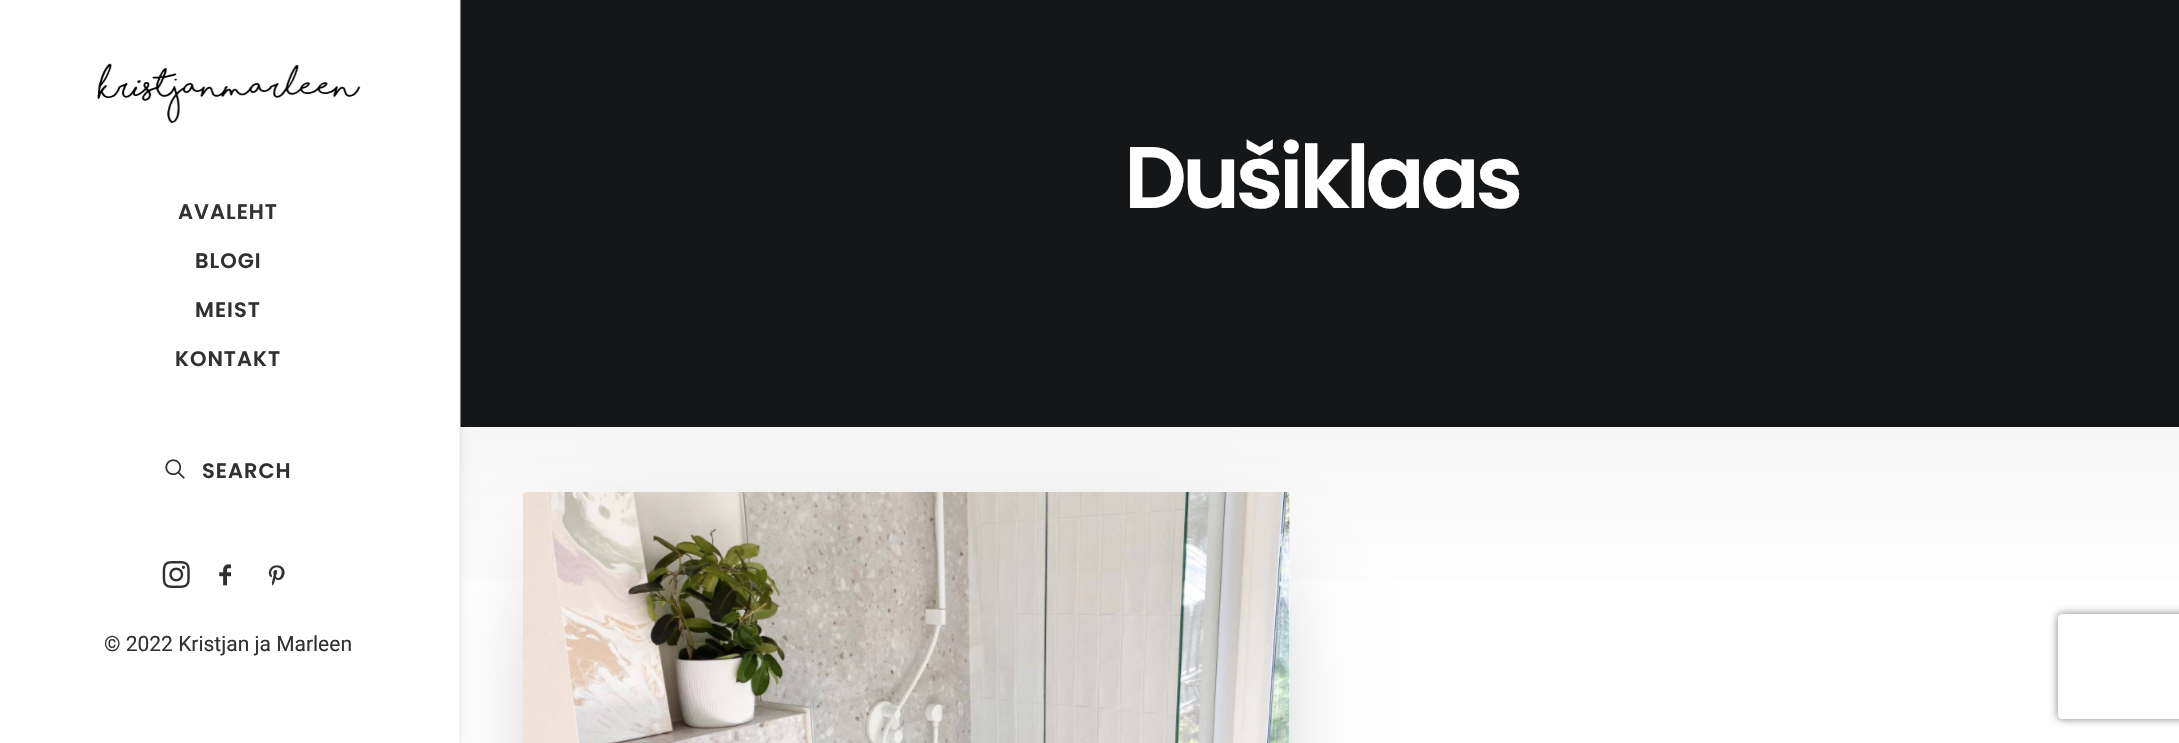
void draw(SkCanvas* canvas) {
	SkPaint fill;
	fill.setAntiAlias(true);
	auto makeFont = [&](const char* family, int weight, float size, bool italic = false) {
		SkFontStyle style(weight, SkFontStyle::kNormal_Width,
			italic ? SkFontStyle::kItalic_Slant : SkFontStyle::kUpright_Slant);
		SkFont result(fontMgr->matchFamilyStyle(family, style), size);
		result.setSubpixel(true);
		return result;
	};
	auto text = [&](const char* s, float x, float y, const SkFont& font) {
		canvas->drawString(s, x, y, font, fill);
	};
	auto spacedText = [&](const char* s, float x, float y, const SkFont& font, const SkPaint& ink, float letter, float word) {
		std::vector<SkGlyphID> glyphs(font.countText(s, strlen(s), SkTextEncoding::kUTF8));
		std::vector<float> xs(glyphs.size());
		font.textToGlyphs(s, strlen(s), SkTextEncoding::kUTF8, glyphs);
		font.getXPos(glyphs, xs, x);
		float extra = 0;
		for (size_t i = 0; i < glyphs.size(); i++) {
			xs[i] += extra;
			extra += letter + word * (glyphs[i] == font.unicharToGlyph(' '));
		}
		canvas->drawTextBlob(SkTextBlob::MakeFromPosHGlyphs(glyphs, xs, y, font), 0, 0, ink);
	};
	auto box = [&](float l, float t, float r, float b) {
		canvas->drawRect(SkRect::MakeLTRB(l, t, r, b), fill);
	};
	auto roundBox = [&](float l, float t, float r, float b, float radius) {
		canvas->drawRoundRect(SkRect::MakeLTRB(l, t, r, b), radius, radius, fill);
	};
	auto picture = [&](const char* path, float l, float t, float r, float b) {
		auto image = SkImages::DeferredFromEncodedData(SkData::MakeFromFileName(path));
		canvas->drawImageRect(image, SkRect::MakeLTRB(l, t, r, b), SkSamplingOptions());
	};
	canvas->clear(0xFF141618);
	fill.setColor(0xFFFFFFFF);
	box(460, 429, 2179, 743);
	{
		const SkColor colors[] = {0x00F7F7F7, 0xFFF7F7F7};
		const float stops[] = {0, 1};
		const SkPoint ends[] = {{1321, 637}, {1321, 427}};
		fill.setShader(SkGradientShader::MakeLinear(ends, colors, stops, 2, SkTileMode::kClamp));
		fill.setAlpha(255);
	}
	box(460, 427, 2179, 581);
	fill.setShader(nullptr);
	fill.setColor(0x73000000);
	fill.setMaskFilter(SkMaskFilter::MakeBlur(kNormal_SkBlurStyle, 52.5f));
	canvas->drawRect(SkRect::MakeLTRB(576, 579, 1237, 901), fill);
	fill.setMaskFilter(nullptr);
	fill.setColor(0xFFFFFFFF);
	roundBox(523, 492, 1290, 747, 4);
	picture("image0.png", 523, 492, 1290, 743);
	fill.setColor(0x1A000000);
	fill.setMaskFilter(SkMaskFilter::MakeBlur(kNormal_SkBlurStyle, 6));
	canvas->drawRect(SkRect::MakeLTRB(0, 2, 459, 742), fill);
	fill.setMaskFilter(nullptr);
	fill.setColor(0xFFFFFFFF);
	box(0, 0, 460, 743);
	fill.setColor(0x80EAEAEA);
	box(459, 0, 461, 743);
	picture("image1.png", 97, 63, 361, 123);
	picture("image2.png", 165, 459, 185, 479);
	picture("image3.png", 162, 561, 190, 588);
	picture("image4.png", 219, 564, 231, 586);
	picture("image5.png", 268, 565, 285, 586);
	canvas->save();
	canvas->clipPath(SkPathBuilder(SkPathFillType::kEvenOdd).moveTo(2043, 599).lineTo(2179, 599).lineTo(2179, 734).lineTo(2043, 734).close().moveTo(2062, 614).lineTo(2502, 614).cubicTo(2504, 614, 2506, 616, 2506, 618).lineTo(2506, 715).cubicTo(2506, 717, 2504, 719, 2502, 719).lineTo(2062, 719).cubicTo(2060, 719, 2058, 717, 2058, 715).lineTo(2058, 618).cubicTo(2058, 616, 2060, 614, 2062, 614).close().detach(), true);
	fill.setColor(0xFF808080);
	fill.setMaskFilter(SkMaskFilter::MakeBlur(kNormal_SkBlurStyle, 4.5f));
	canvas->drawRoundRect(SkRect::MakeLTRB(2058, 614, 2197, 719), 4, 4, fill);
	fill.setMaskFilter(nullptr);
	canvas->restore();
	auto font1 = makeFont("Poppins", 600, 87.5f);
	fill.setColor(0xFFFFFFFF);
	spacedText("Dušiklaas", 1124, 208, font1, fill, -4.4f, 0);
	auto font2 = makeFont("Poppins", 600, 21);
	fill.setColor(0xFF303133);
	spacedText("AVALEHT", 178, 219, font2, fill, 1, 0);
	spacedText("BLOGI", 195, 268, font2, fill, 1, 0);
	spacedText("MEIST", 195, 317, font2, fill, 1, 0);
	spacedText("KONTAKT", 175, 366, font2, fill, 1, 0);
	spacedText("SEARCH", 202, 478, font2, fill, 1, 0);
	auto font3 = makeFont("Roboto", 400, 21);
	text("© 2022 Kristjan ja Marleen", 104, 651, font3);
}
